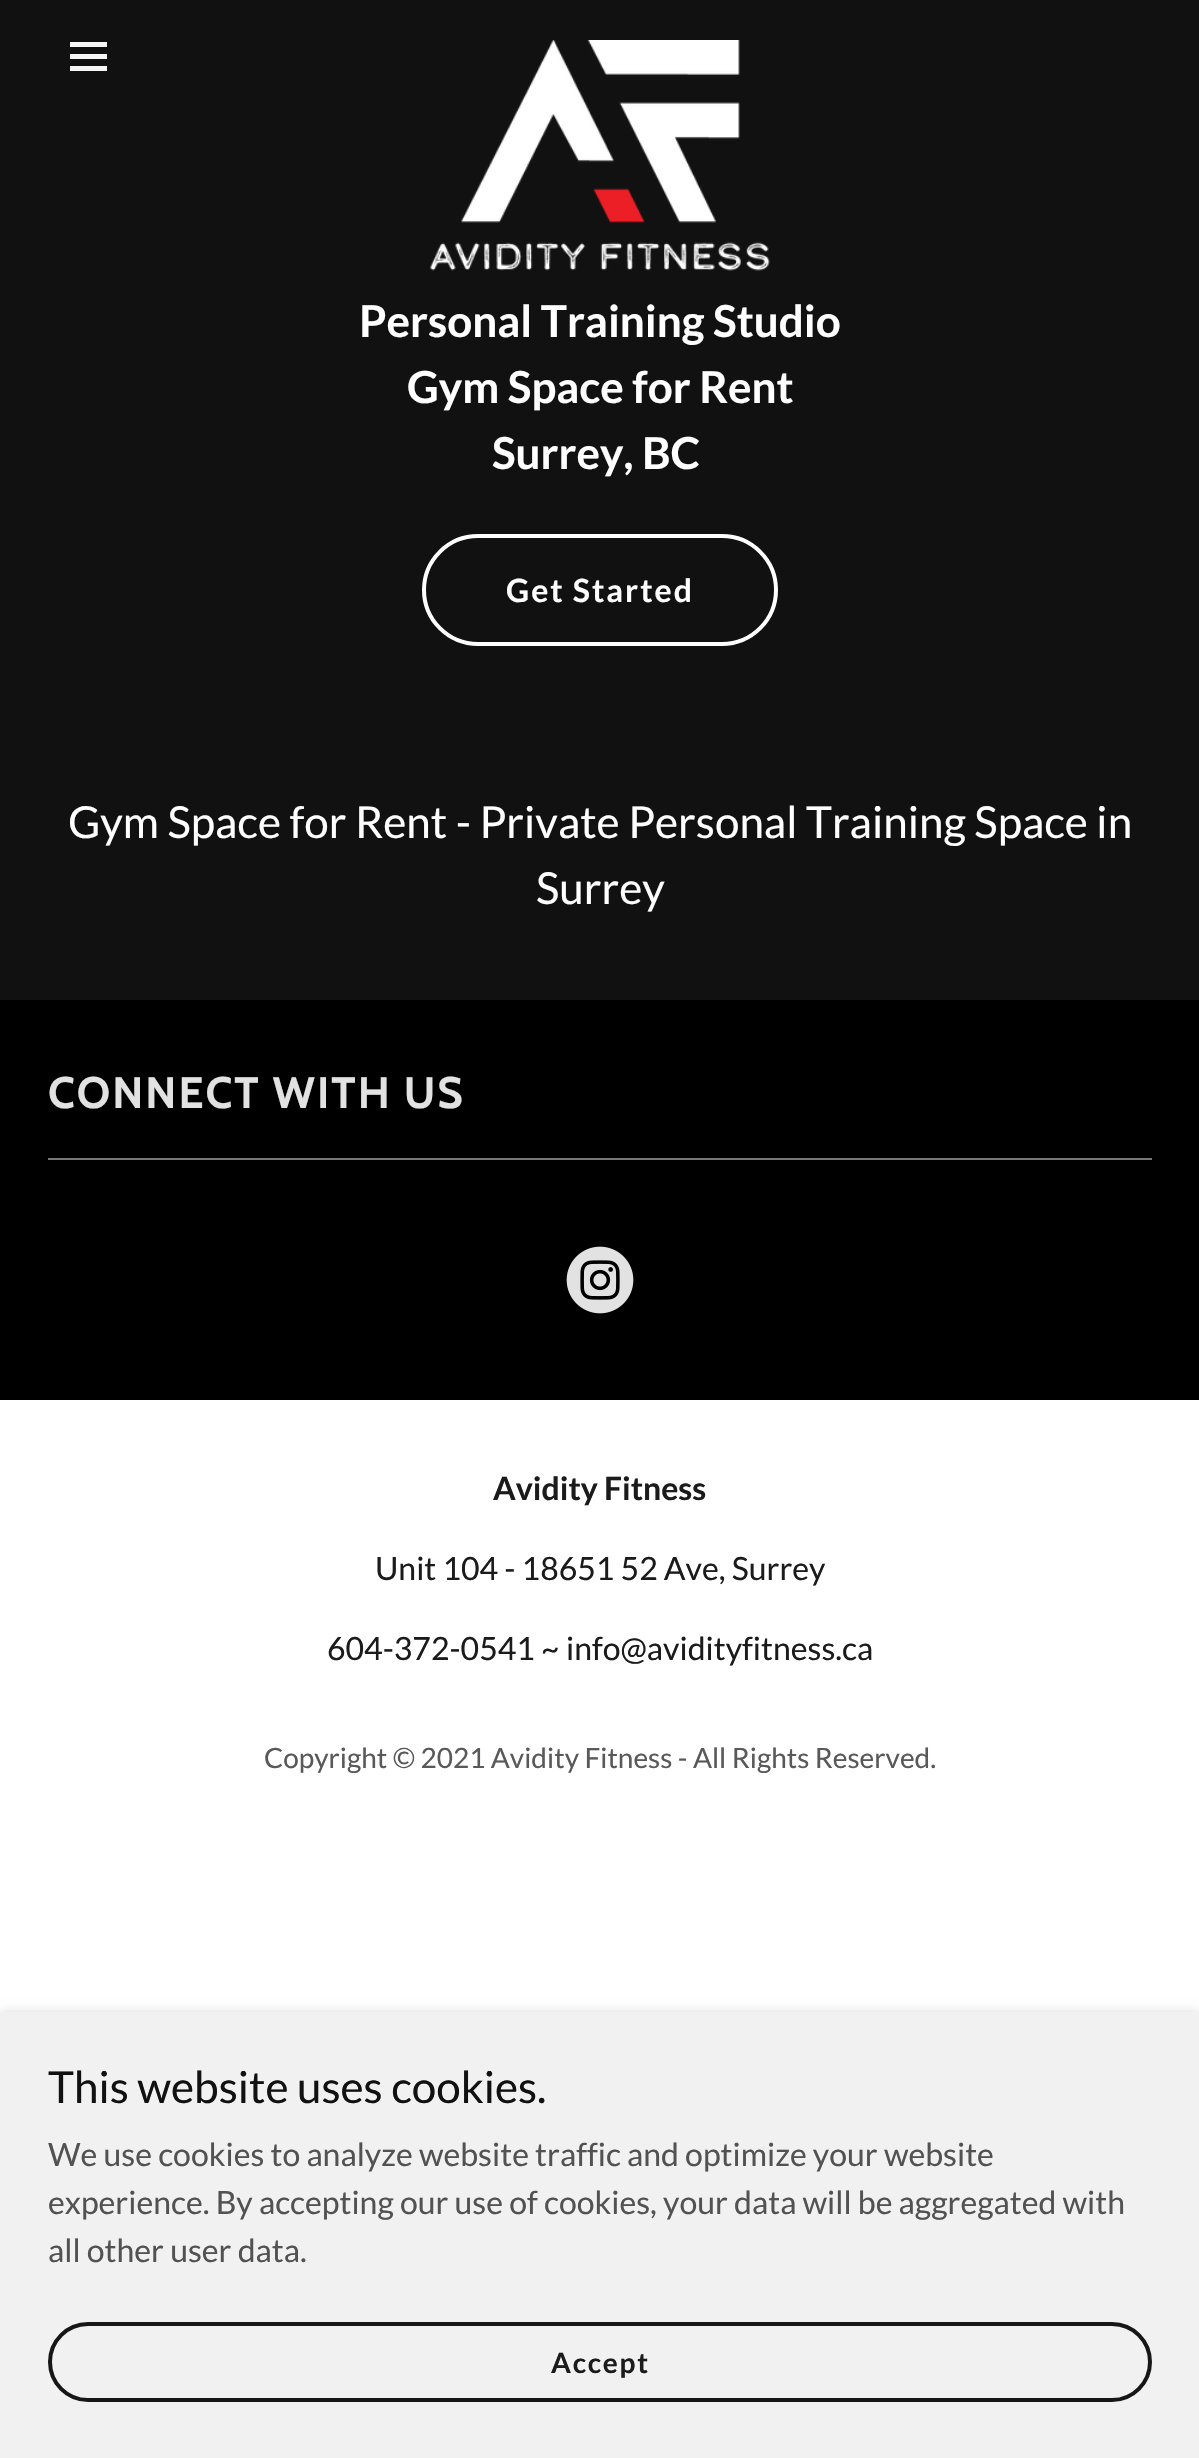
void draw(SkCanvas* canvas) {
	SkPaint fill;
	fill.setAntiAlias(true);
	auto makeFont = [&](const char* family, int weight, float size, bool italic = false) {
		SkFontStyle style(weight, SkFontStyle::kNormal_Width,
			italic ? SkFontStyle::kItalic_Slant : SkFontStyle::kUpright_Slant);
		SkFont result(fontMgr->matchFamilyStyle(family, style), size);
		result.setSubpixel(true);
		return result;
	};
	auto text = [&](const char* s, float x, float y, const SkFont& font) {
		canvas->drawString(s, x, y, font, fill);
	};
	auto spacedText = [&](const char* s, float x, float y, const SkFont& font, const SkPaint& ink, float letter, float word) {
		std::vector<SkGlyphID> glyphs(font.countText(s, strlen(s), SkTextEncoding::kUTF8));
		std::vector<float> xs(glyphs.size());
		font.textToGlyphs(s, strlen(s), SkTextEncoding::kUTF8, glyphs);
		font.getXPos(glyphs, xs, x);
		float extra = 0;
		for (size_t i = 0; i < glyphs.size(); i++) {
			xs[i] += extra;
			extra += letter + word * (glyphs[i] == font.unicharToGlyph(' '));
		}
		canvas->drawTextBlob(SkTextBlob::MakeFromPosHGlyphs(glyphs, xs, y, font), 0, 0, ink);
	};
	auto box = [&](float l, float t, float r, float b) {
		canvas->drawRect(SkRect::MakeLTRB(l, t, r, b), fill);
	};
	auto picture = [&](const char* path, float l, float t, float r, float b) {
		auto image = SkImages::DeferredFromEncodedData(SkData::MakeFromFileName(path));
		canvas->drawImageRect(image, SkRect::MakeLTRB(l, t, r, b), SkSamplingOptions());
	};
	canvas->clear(0xFFFFFFFF);
	fill.setColor(0xFF111111);
	box(0, 0, 1199, 1000);
	fill.setColor(0xFFF7F7F7);
	box(70, 42, 107, 47);
	box(70, 54, 107, 59);
	box(70, 66, 107, 71);
	picture("image0.png", 430, 40, 770, 271);
	fill.setStyle(SkPaint::kStroke_Style);
	fill.setStrokeWidth(4);
	fill.setColor(0xFFFFFFFF);
	canvas->drawRoundRect(SkRect::MakeLTRB(424, 536, 776, 644), 54, 54, fill);
	fill.setStyle(SkPaint::kFill_Style);
	fill.setColor(0xFF000000);
	box(0, 1000, 1199, 1400);
	fill.setColor(0xFF777777);
	box(48, 1158, 1152, 1160);
	picture("image1.png", 566, 1246, 634, 1314);
	fill.setColor(0x4D000000);
	fill.setMaskFilter(SkMaskFilter::MakeBlur(kNormal_SkBlurStyle, 6));
	canvas->drawRect(SkRect::MakeLTRB(0, 2016, 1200, 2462), fill);
	fill.setMaskFilter(nullptr);
	fill.setColor(0xFFF1F1F1);
	box(0, 2012, 1199, 2458);
	fill.setStyle(SkPaint::kStroke_Style);
	fill.setColor(0xFF161616);
	canvas->drawRoundRect(SkRect::MakeLTRB(50, 2324, 1150, 2400), 38, 38, fill);
	auto font1 = makeFont("Lato", 700, 44);
	fill.setStyle(SkPaint::kFill_Style);
	fill.setColor(0xFFFFFFFF);
	text("Personal Training Studio", 359, 337, font1);
	text("Gym Space for Rent", 407, 403, font1);
	text("Surrey, BC", 492, 469, font1);
	auto font2 = makeFont("Lato", 700, 32);
	spacedText("Get Started", 506, 602, font2, fill, 2, 0);
	auto font3 = makeFont("Lato", 400, 44);
	text("Gym Space for Rent - Private Personal Training Space in", 68, 838, font3);
	text("Surrey", 536, 904, font3);
	auto font4 = makeFont("Cabin", 700, 44);
	fill.setColor(0xFFE2E2E2);
	spacedText("CONNECT WITH US", 48, 1108, font4, fill, 2, 0);
	fill.setColor(0xFF1B1B1B);
	text("Avidity Fitness", 493, 1500, font2);
	auto font5 = makeFont("Lato", 400, 32);
	text("Unit 104 - 18651 52 Ave, Surrey", 375, 1580, font5);
	text("604-372-0541", 327, 1660, font5);
	text("~", 541, 1660, font5);
	text("info@avidityfitness.ca", 566, 1660, font5);
	auto font6 = makeFont("Lato", 400, 28);
	fill.setColor(0xFF595959);
	text("Copyright © 2021 Avidity Fitness - All Rights Reserved.", 264, 1768, font6);
	fill.setColor(0xFF111111);
	text("This website uses cookies.", 48, 2103, font3);
	fill.setColor(0xFF525252);
	text("We use cookies to analyze website traffic and optimize your website", 48, 2166, font5);
	text("experience. By accepting our use of cookies, your data will be aggregated with", 48, 2214, font5);
	text("all other user data.", 48, 2262, font5);
	auto font7 = makeFont("Lato", 700, 28);
	fill.setColor(0xFF1B1B1B);
	spacedText("Accept", 551, 2373, font7, fill, 1.75f, 0);
}
